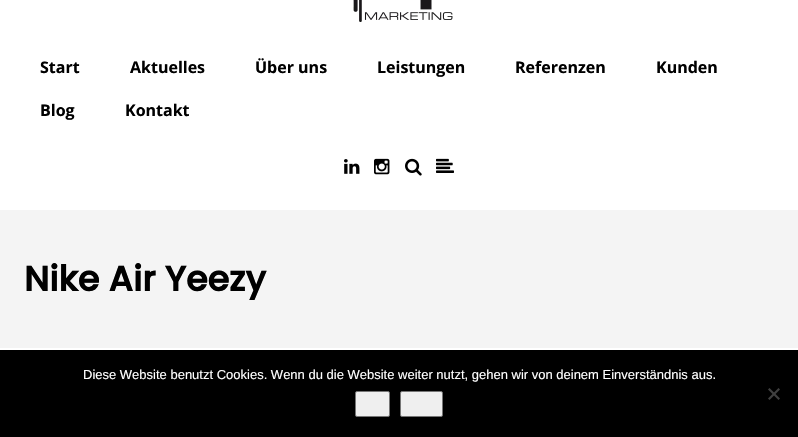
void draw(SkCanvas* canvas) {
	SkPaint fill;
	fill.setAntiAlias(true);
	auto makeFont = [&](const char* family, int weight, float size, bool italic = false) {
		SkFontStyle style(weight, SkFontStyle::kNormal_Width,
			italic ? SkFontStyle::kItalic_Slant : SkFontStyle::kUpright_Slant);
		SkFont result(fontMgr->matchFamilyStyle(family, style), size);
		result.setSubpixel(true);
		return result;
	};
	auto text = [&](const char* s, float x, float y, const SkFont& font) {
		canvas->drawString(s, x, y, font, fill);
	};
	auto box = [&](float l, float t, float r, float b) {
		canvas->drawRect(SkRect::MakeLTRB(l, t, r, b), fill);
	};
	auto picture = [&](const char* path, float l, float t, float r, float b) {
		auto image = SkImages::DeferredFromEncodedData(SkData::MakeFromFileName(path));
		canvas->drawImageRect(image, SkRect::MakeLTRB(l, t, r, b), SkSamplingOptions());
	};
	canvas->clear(0xFFFFFFFF);
	picture("image0.png", 353, 0, 453, 22);
	picture("image1.png", 344, 159, 360, 174);
	picture("image2.png", 374, 158, 390, 175);
	picture("image3.png", 405, 158, 422, 176);
	picture("image4.png", 436, 158, 454, 173);
	fill.setColor(0xFFF4F4F4);
	box(0, 210, 798, 348);
	fill.setColor(0xFF000000);
	box(0, 350, 798, 437);
	fill.setColor(0xFFEFEFEF);
	canvas->drawRoundRect(SkRect::MakeLTRB(355.5f, 391.5f, 389.5f, 416.5f), 1.5f, 1.5f, fill);
	fill.setStyle(SkPaint::kStroke_Style);
	fill.setStrokeWidth(1);
	fill.setColor(0xFF767676);
	canvas->drawRoundRect(SkRect::MakeLTRB(355.5f, 391.5f, 389.5f, 416.5f), 1.5f, 1.5f, fill);
	fill.setStyle(SkPaint::kFill_Style);
	fill.setColor(0xFFEFEFEF);
	canvas->drawRoundRect(SkRect::MakeLTRB(400.5f, 391.5f, 442.5f, 416.5f), 1.5f, 1.5f, fill);
	fill.setStyle(SkPaint::kStroke_Style);
	fill.setColor(0xFF767676);
	canvas->drawRoundRect(SkRect::MakeLTRB(400.5f, 391.5f, 442.5f, 416.5f), 1.5f, 1.5f, fill);
	fill.setStyle(SkPaint::kFill_Style);
	fill.setColor(0xFF404040);
	canvas->drawPath(SkPathBuilder().moveTo(778.5f, 388).lineTo(780, 389.5f).lineTo(769.5f, 400).lineTo(768, 398.5f).close().detach(), fill);
	canvas->drawPath(SkPathBuilder().moveTo(768, 389.5f).lineTo(769.5f, 388).lineTo(780, 398.5f).lineTo(778.5f, 400).close().detach(), fill);
	auto font1 = makeFont("Open Sans", 700, 16);
	fill.setColor(0xFF000000);
	text("Start", 40, 73, font1);
	text("Aktuelles", 130, 73, font1);
	text("Über uns", 255, 73, font1);
	text("Leistungen", 377, 73, font1);
	text("Referenzen", 515, 73, font1);
	text("Kunden", 656, 73, font1);
	text("Blog", 40, 116, font1);
	text("Kontakt", 125, 116, font1);
	auto font2 = makeFont("Poppins", 700, 35);
	text("Nike Air Yeezy", 24, 291, font2);
	auto font3 = makeFont("Liberation Sans", 400, 13);
	fill.setColor(0xFFFFFFFF);
	text("Diese Website benutzt Cookies. Wenn du die Website weiter nutzt, gehen wir von deinem Einverständnis aus.", 83, 379, font3);
}
